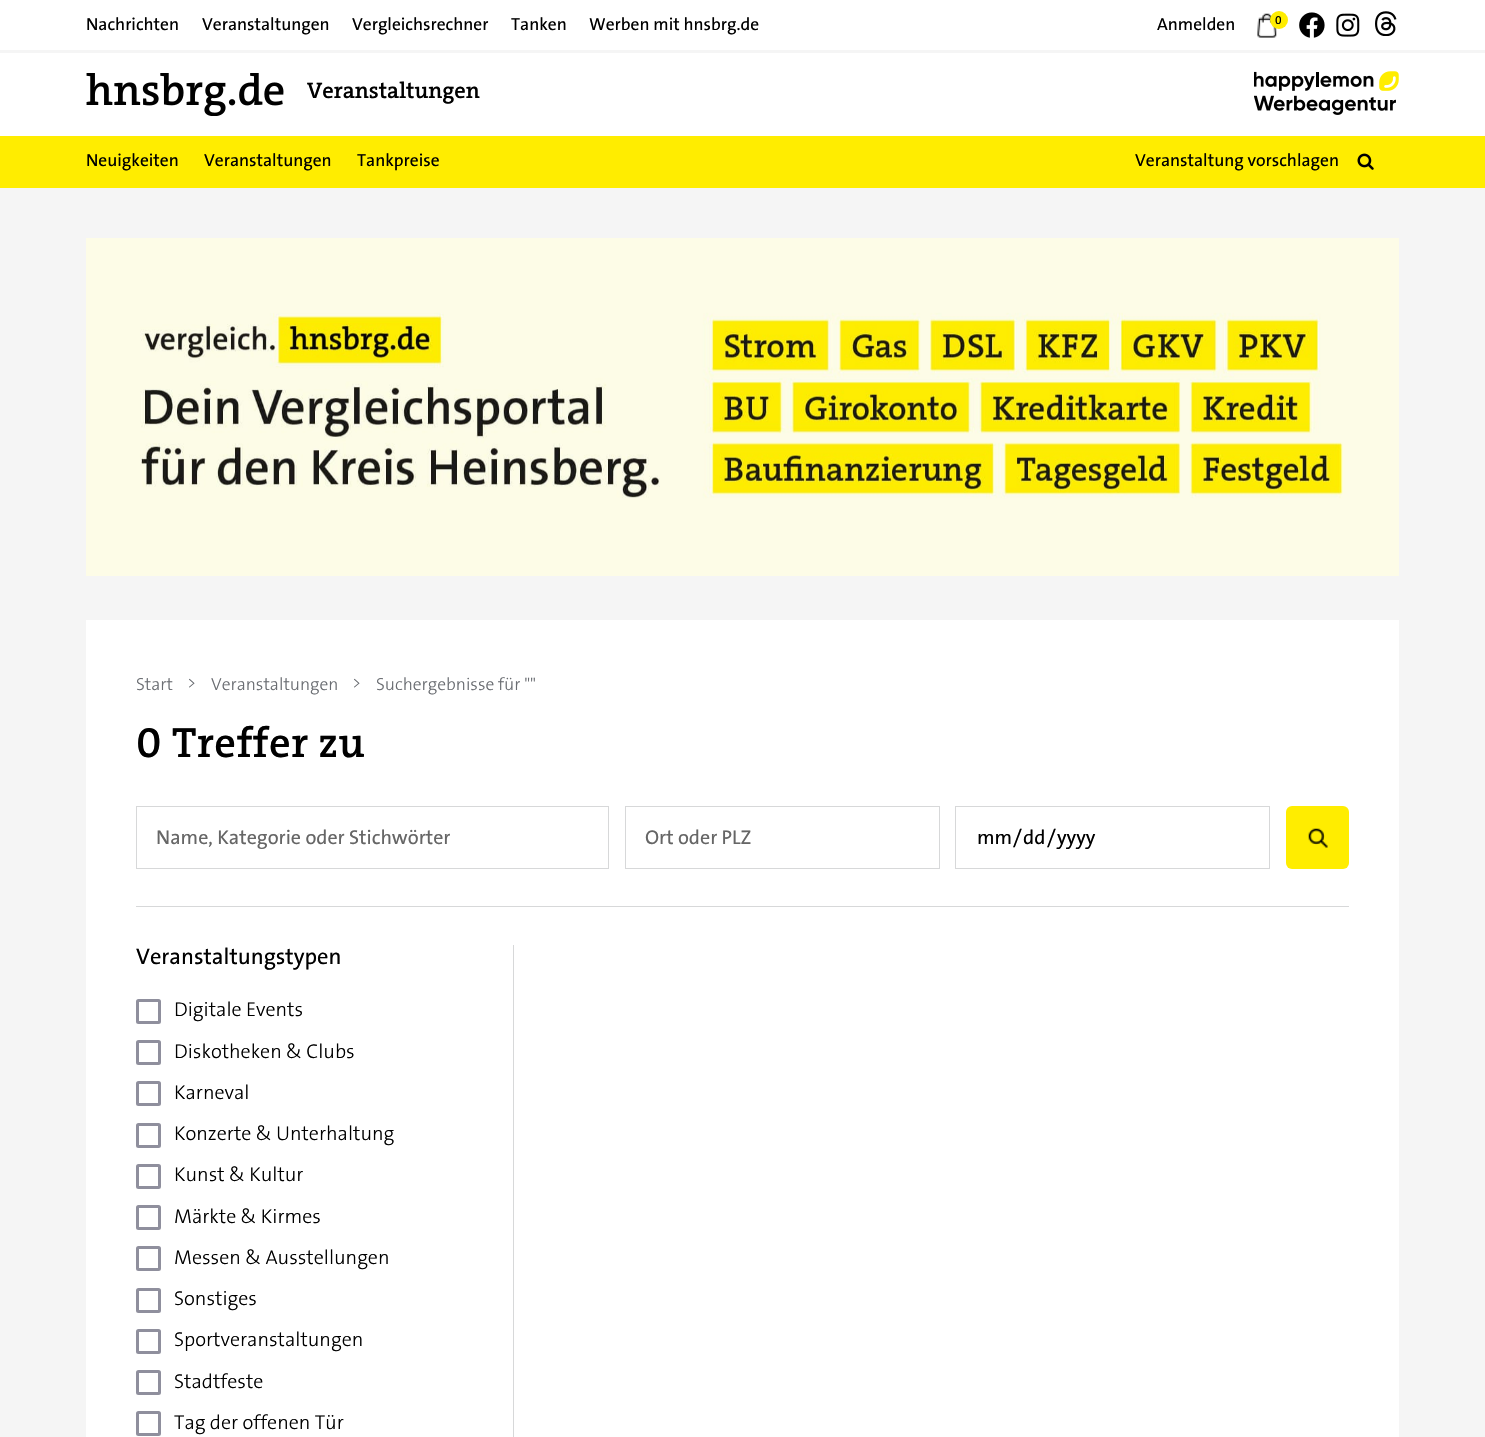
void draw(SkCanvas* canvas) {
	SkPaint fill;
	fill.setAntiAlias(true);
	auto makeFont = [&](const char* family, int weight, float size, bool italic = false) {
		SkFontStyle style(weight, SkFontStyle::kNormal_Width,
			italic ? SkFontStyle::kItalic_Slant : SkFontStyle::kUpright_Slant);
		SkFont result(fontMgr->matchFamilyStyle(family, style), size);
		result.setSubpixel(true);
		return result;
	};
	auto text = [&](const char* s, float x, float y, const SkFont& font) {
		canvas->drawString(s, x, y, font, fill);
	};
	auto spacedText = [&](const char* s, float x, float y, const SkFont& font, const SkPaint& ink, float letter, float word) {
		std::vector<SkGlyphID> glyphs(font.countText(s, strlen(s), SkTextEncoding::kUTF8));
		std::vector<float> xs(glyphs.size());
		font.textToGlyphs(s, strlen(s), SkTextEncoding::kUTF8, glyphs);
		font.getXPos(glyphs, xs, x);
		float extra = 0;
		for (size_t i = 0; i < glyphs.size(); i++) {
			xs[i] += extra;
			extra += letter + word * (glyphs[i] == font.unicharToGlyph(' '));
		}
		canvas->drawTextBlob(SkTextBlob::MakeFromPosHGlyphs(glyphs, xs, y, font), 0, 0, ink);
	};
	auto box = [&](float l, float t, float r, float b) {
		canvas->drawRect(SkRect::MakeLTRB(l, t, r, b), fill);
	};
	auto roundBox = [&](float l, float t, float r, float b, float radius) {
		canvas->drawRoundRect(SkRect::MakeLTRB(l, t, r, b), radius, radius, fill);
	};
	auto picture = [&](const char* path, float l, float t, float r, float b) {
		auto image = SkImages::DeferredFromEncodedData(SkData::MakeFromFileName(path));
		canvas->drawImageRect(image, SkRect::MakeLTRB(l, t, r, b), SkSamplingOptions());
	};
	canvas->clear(0xFFF5F5F5);
	fill.setColor(0xFFFFFFFF);
	box(0, 0, 1485, 50);
	picture("image0.png", 1257, 13, 1277, 38);
	fill.setColor(0xFFFFED00);
	canvas->drawCircle(1279, 20, 9, fill);
	picture("image1.png", 1299, 12, 1325, 38);
	picture("image2.png", 1336, 13, 1360, 37);
	picture("image3.png", 1375, 11, 1397, 36);
	fill.setColor(0xFFFFFFFF);
	box(0, 53, 1485, 136);
	picture("image4.png", 86, 73, 284, 116);
	picture("image5.png", 1254, 71, 1399, 115);
	fill.setColor(0xFFFFED00);
	box(0, 136, 1485, 188);
	picture("image6.png", 1357, 153, 1374, 170);
	picture("image7.png", 86, 238, 1399, 576);
	fill.setColor(0xFFFFFFFF);
	box(86, 620, 1399, 1437);
	fill.setColor(0xFFD7D8D9);
	box(136, 906, 1349, 907);
	fill.setStyle(SkPaint::kStroke_Style);
	fill.setStrokeWidth(1);
	canvas->drawRect(SkRect::MakeLTRB(136.5f, 806.5f, 608.5f, 868.5f), fill);
	canvas->drawRect(SkRect::MakeLTRB(625.5f, 806.5f, 939.5f, 868.5f), fill);
	canvas->drawRect(SkRect::MakeLTRB(955.5f, 806.5f, 1269.5f, 868.5f), fill);
	fill.setStyle(SkPaint::kFill_Style);
	fill.setColor(0xFFFFED00);
	roundBox(1286, 806, 1349, 869, 6);
	picture("image8.png", 1308, 828, 1328, 848);
	fill.setStyle(SkPaint::kStroke_Style);
	fill.setStrokeWidth(3);
	fill.setColor(0xFF8F8F9D);
	canvas->drawRoundRect(SkRect::MakeLTRB(137.5f, 1000.5f, 159.5f, 1022.5f), 1, 1, fill);
	canvas->drawRoundRect(SkRect::MakeLTRB(137.5f, 1041.5f, 159.5f, 1063.5f), 1, 1, fill);
	canvas->drawRoundRect(SkRect::MakeLTRB(137.5f, 1082.5f, 159.5f, 1104.5f), 1, 1, fill);
	canvas->drawRoundRect(SkRect::MakeLTRB(137.5f, 1124.5f, 159.5f, 1146.5f), 1, 1, fill);
	canvas->drawRoundRect(SkRect::MakeLTRB(137.5f, 1165.5f, 159.5f, 1187.5f), 1, 1, fill);
	canvas->drawRoundRect(SkRect::MakeLTRB(137.5f, 1206.5f, 159.5f, 1228.5f), 1, 1, fill);
	canvas->drawRoundRect(SkRect::MakeLTRB(137.5f, 1247.5f, 159.5f, 1269.5f), 1, 1, fill);
	canvas->drawRoundRect(SkRect::MakeLTRB(137.5f, 1289.5f, 159.5f, 1311.5f), 1, 1, fill);
	canvas->drawRoundRect(SkRect::MakeLTRB(137.5f, 1330.5f, 159.5f, 1352.5f), 1, 1, fill);
	canvas->drawRoundRect(SkRect::MakeLTRB(137.5f, 1371.5f, 159.5f, 1393.5f), 1, 1, fill);
	canvas->drawRoundRect(SkRect::MakeLTRB(137.5f, 1412.5f, 159.5f, 1434.5f), 1, 1, fill);
	fill.setStyle(SkPaint::kFill_Style);
	fill.setColor(0xFFD7D8D9);
	box(513, 945, 514, 1437);
	auto font1 = makeFont("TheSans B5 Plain", 500, 17.5f);
	fill.setColor(0xFF000000);
	text("Nachrichten", 86, 30, font1);
	text("Veranstaltungen", 202, 30, font1);
	text("Vergleichsrechner", 352, 30, font1);
	text("Tanken", 511, 30, font1);
	text("Werben mit hnsbrg.de", 589, 30, font1);
	text("Anmelden", 1157, 30, font1);
	auto font2 = makeFont("TheSans B5 Plain", 500, 12);
	text("0", 1275, 24, font2);
	auto font3 = makeFont("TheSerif", 600, 22.5f);
	text("Veranstaltungen", 307, 98, font3);
	text("Neuigkeiten", 86, 166, font1);
	text("Veranstaltungen", 204, 166, font1);
	text("Tankpreise", 357, 166, font1);
	text("Veranstaltung vorschlagen", 1135, 166, font1);
	auto font4 = makeFont("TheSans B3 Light", 300, 17.5f);
	fill.setColor(0xFF696C71);
	text("Start", 136, 690, font4);
	auto font5 = makeFont("TheSans B3 Light", 300, 16);
	text(">", 187, 688, font5);
	text("Veranstaltungen", 211, 690, font4);
	text(">", 352, 688, font5);
	text("Suchergebnisse für \"\"", 376, 690, font4);
	auto font6 = makeFont("TheSerif", 600, 42.5f);
	fill.setColor(0xFF000000);
	spacedText("0 Treffer zu", 136, 757, font6, fill, 0.6f, 0);
	auto font7 = makeFont("TheSans B5 Plain", 500, 20);
	fill.setColor(0xFF666666);
	text("Name, Kategorie oder Stichwörter", 156, 844, font7);
	text("Ort oder PLZ", 645, 844, font7);
	fill.setColor(0xFF000000);
	text("mm", 977, 844, font7);
	text("/", 1013, 844, font7);
	text("dd", 1023, 844, font7);
	text("/", 1047, 844, font7);
	text("yyyy", 1057, 844, font7);
	auto font8 = makeFont("TheSans B5 Plain", 500, 22.5f);
	text("Veranstaltungstypen", 136, 964, font8);
	auto font9 = makeFont("TheSans B3 Light", 300, 20);
	text("Digitale Events", 174, 1016, font9);
	text("Diskotheken & Clubs", 174, 1058, font9);
	text("Karneval", 174, 1099, font9);
	text("Konzerte & Unterhaltung", 174, 1140, font9);
	text("Kunst & Kultur", 174, 1181, font9);
	text("Märkte & Kirmes", 174, 1223, font9);
	text("Messen & Ausstellungen", 174, 1264, font9);
	text("Sonstiges", 174, 1305, font9);
	text("Sportveranstaltungen", 174, 1346, font9);
	text("Stadtfeste", 174, 1388, font9);
	text("Tag der offenen Tür", 174, 1429, font9);
}
